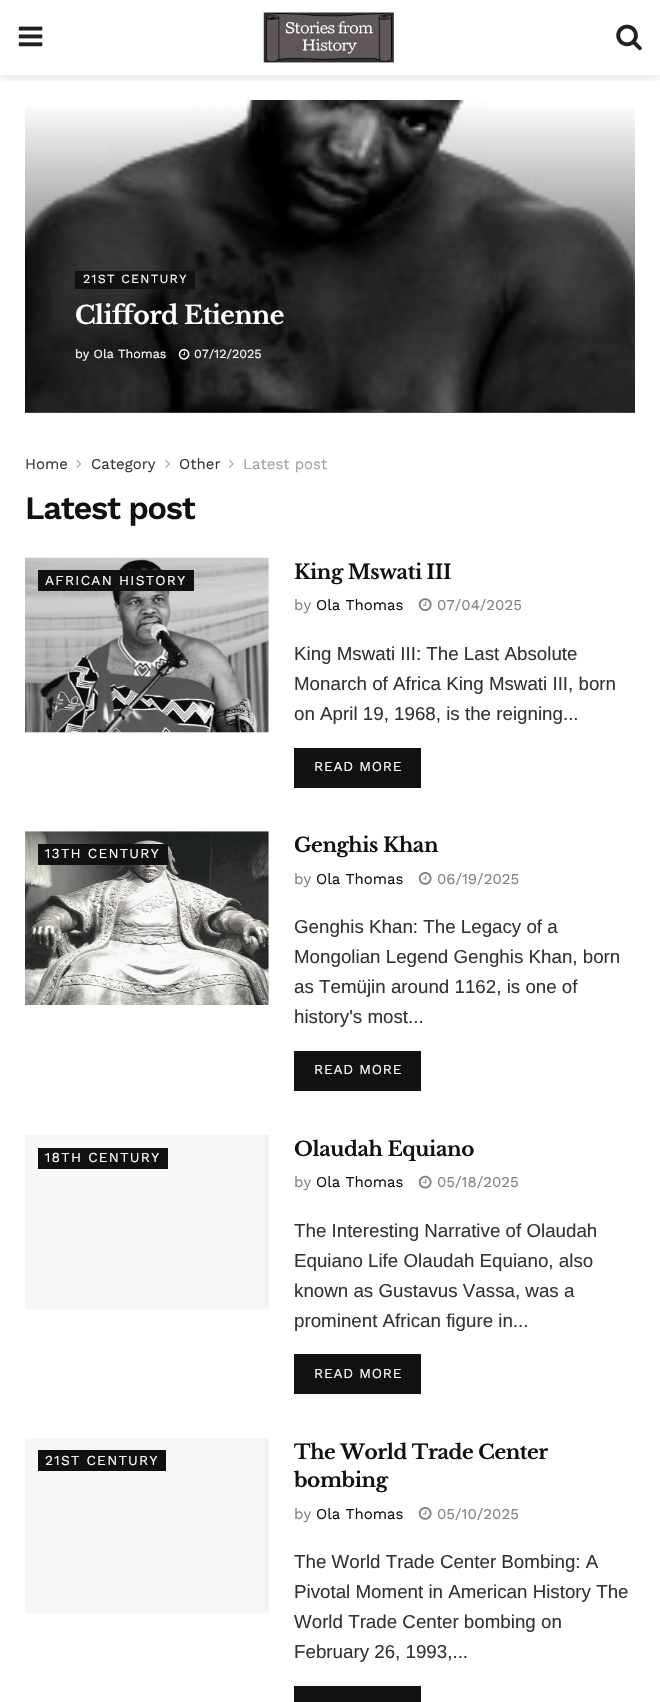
void draw(SkCanvas* canvas) {
	SkPaint fill;
	fill.setAntiAlias(true);
	auto makeFont = [&](const char* family, int weight, float size, bool italic = false) {
		SkFontStyle style(weight, SkFontStyle::kNormal_Width,
			italic ? SkFontStyle::kItalic_Slant : SkFontStyle::kUpright_Slant);
		SkFont result(fontMgr->matchFamilyStyle(family, style), size);
		result.setSubpixel(true);
		return result;
	};
	auto text = [&](const char* s, float x, float y, const SkFont& font) {
		canvas->drawString(s, x, y, font, fill);
	};
	auto spacedText = [&](const char* s, float x, float y, const SkFont& font, const SkPaint& ink, float letter, float word) {
		std::vector<SkGlyphID> glyphs(font.countText(s, strlen(s), SkTextEncoding::kUTF8));
		std::vector<float> xs(glyphs.size());
		font.textToGlyphs(s, strlen(s), SkTextEncoding::kUTF8, glyphs);
		font.getXPos(glyphs, xs, x);
		float extra = 0;
		for (size_t i = 0; i < glyphs.size(); i++) {
			xs[i] += extra;
			extra += letter + word * (glyphs[i] == font.unicharToGlyph(' '));
		}
		canvas->drawTextBlob(SkTextBlob::MakeFromPosHGlyphs(glyphs, xs, y, font), 0, 0, ink);
	};
	auto box = [&](float l, float t, float r, float b) {
		canvas->drawRect(SkRect::MakeLTRB(l, t, r, b), fill);
	};
	auto picture = [&](const char* path, float l, float t, float r, float b) {
		auto image = SkImages::DeferredFromEncodedData(SkData::MakeFromFileName(path));
		canvas->drawImageRect(image, SkRect::MakeLTRB(l, t, r, b), SkSamplingOptions());
	};
	canvas->clear(0xFFFFFFFF);
	canvas->save();
	canvas->clipRect(SkRect::MakeLTRB(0, 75, 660, 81));
	fill.setColor(0x1A000000);
	fill.setMaskFilter(SkMaskFilter::MakeBlur(kNormal_SkBlurStyle, 4));
	canvas->drawRect(SkRect::MakeLTRB(0, 3, 660, 78), fill);
	fill.setMaskFilter(nullptr);
	canvas->restore();
	picture("image0.png", 18, 26, 43, 47);
	picture("image1.png", 263, 12, 394, 63);
	picture("image2.png", 616, 24, 642, 51);
	fill.setColor(0xFFF7F7F7);
	box(25, 412, 635, 413);
	picture("image3.png", 25, 100, 635, 413);
	{
		const SkColor colors[] = {0x00000000, 0x99000000, 0x99000000};
		const float stops[] = {0, 0.65f, 1};
		const SkPoint ends[] = {{311, 100}, {311, 413}};
		fill.setShader(SkGradientShader::MakeLinear(ends, colors, stops, 3, SkTileMode::kClamp));
		fill.setAlpha(255);
	}
	box(25, 107, 635, 413);
	fill.setShader(nullptr);
	fill.setColor(0xFF111111);
	box(75, 271, 195, 289);
	picture("image4.png", 178, 348, 190, 360);
	picture("image5.png", 76, 459, 82, 468);
	picture("image6.png", 165, 459, 170, 468);
	picture("image7.png", 228, 459, 234, 468);
	fill.setColor(0xFFF7F7F7);
	box(25, 558, 269, 733);
	picture("image8.png", 25, 557, 269, 733);
	fill.setColor(0xFF111111);
	box(38, 570, 194, 591);
	picture("image9.png", 418, 598, 432, 611);
	box(294, 748, 421, 788);
	fill.setColor(0xFFF7F7F7);
	box(25, 831, 269, 1005);
	picture("image10.png", 25, 831, 269, 1005);
	fill.setColor(0xFF111111);
	box(38, 844, 168, 865);
	picture("image11.png", 418, 872, 432, 885);
	box(294, 1051, 421, 1091);
	fill.setColor(0xFFF7F7F7);
	box(25, 1135, 269, 1309);
	fill.setColor(0xFFF2F2F2);
	box(265, 1135, 268, 1308);
	fill.setColor(0xFF111111);
	box(38, 1148, 168, 1169);
	picture("image12.png", 418, 1175, 432, 1189);
	box(294, 1354, 421, 1394);
	fill.setColor(0xFFF7F7F7);
	box(25, 1438, 269, 1613);
	fill.setColor(0xFFF2F2F2);
	box(265, 1438, 268, 1612);
	fill.setColor(0xFF111111);
	box(38, 1450, 166, 1471);
	picture("image11.png", 418, 1507, 432, 1520);
	box(294, 1686, 421, 1702);
	auto font1 = makeFont("Work Sans", 400, 12.5f);
	fill.setColor(0xFFFFFFFF);
	spacedText("21ST CENTURY", 83, 283, font1, fill, 1.25f, 0);
	auto font2 = makeFont("Libre Baskerville", 700, 25);
	spacedText("Clifford Etienne", 75, 324, font2, fill, -0.5f, 0);
	text("by Ola Thomas", 75, 358, font1);
	text("07/12/2025", 194, 358, font1);
	auto font3 = makeFont("Work Sans", 400, 15);
	fill.setColor(0xFF333333);
	text("Home", 25, 469, font3);
	text("Category", 91, 469, font3);
	text("Other", 179, 469, font3);
	fill.setColor(0xFFA0A0A0);
	text("Latest post", 243, 469, font3);
	auto font4 = makeFont("Work Sans", 600, 32.5f);
	fill.setColor(0xFF111111);
	spacedText("Latest post", 25, 519, font4, fill, -1.25f, 0);
	auto font5 = makeFont("Work Sans", 400, 13.75f);
	fill.setColor(0xFFFFFFFF);
	spacedText("AFRICAN HISTORY", 45, 585, font5, fill, 1.25f, 0);
	auto font6 = makeFont("Libre Baskerville", 700, 20);
	fill.setColor(0xFF111111);
	spacedText("King Mswati III", 294, 579, font6, fill, -0.4f, 0);
	fill.setColor(0xFF808080);
	text("by", 294, 610, font3);
	fill.setColor(0xFF111111);
	text("Ola Thomas", 316, 610, font3);
	fill.setColor(0xFF808080);
	text("07/04/2025", 437, 610, font3);
	auto font7 = makeFont("Liberation Sans", 400, 18.75f);
	fill.setColor(0xFF333333);
	text("King Mswati III: The Last Absolute", 294, 660, font7);
	text("Monarch of Africa King Mswati III, born", 294, 690, font7);
	text("on April 19, 1968, is the reigning...", 294, 720, font7);
	fill.setColor(0xFFFFFFFF);
	spacedText("READ MORE", 314, 771, font5, fill, 0.75f, 0);
	spacedText("13TH CENTURY", 45, 858, font5, fill, 1.25f, 0);
	fill.setColor(0xFF111111);
	spacedText("Genghis Khan", 294, 852, font6, fill, -0.4f, 0);
	fill.setColor(0xFF808080);
	text("by", 294, 884, font3);
	fill.setColor(0xFF111111);
	text("Ola Thomas", 316, 884, font3);
	fill.setColor(0xFF808080);
	text("06/19/2025", 437, 884, font3);
	fill.setColor(0xFF333333);
	text("Genghis Khan: The Legacy of a", 294, 933, font7);
	text("Mongolian Legend Genghis Khan, born", 294, 963, font7);
	text("as Temüjin around 1162, is one of", 294, 993, font7);
	text("history's most...", 294, 1023, font7);
	fill.setColor(0xFFFFFFFF);
	spacedText("READ MORE", 314, 1074, font5, fill, 0.75f, 0);
	spacedText("18TH CENTURY", 45, 1162, font5, fill, 1.25f, 0);
	fill.setColor(0xFF111111);
	spacedText("Olaudah Equiano", 294, 1156, font6, fill, -0.4f, 0);
	fill.setColor(0xFF808080);
	text("by", 294, 1187, font3);
	fill.setColor(0xFF111111);
	text("Ola Thomas", 316, 1187, font3);
	fill.setColor(0xFF808080);
	text("05/18/2025", 437, 1187, font3);
	fill.setColor(0xFF333333);
	text("The Interesting Narrative of Olaudah", 294, 1237, font7);
	text("Equiano Life Olaudah Equiano, also", 294, 1267, font7);
	text("known as Gustavus Vassa, was a", 294, 1297, font7);
	text("prominent African figure in...", 294, 1327, font7);
	fill.setColor(0xFFFFFFFF);
	spacedText("READ MORE", 314, 1378, font5, fill, 0.75f, 0);
	spacedText("21ST CENTURY", 45, 1465, font5, fill, 1.25f, 0);
	fill.setColor(0xFF111111);
	spacedText("The World Trade Center", 294, 1459, font6, fill, -0.4f, 0);
	spacedText("bombing", 294, 1487, font6, fill, -0.4f, 0);
	fill.setColor(0xFF808080);
	text("by", 294, 1519, font3);
	fill.setColor(0xFF111111);
	text("Ola Thomas", 316, 1519, font3);
	fill.setColor(0xFF808080);
	text("05/10/2025", 437, 1519, font3);
	fill.setColor(0xFF333333);
	text("The World Trade Center Bombing: A", 294, 1568, font7);
	text("Pivotal Moment in American History The", 294, 1598, font7);
	text("World Trade Center bombing on", 294, 1628, font7);
	text("February 26, 1993,...", 294, 1658, font7);
}
